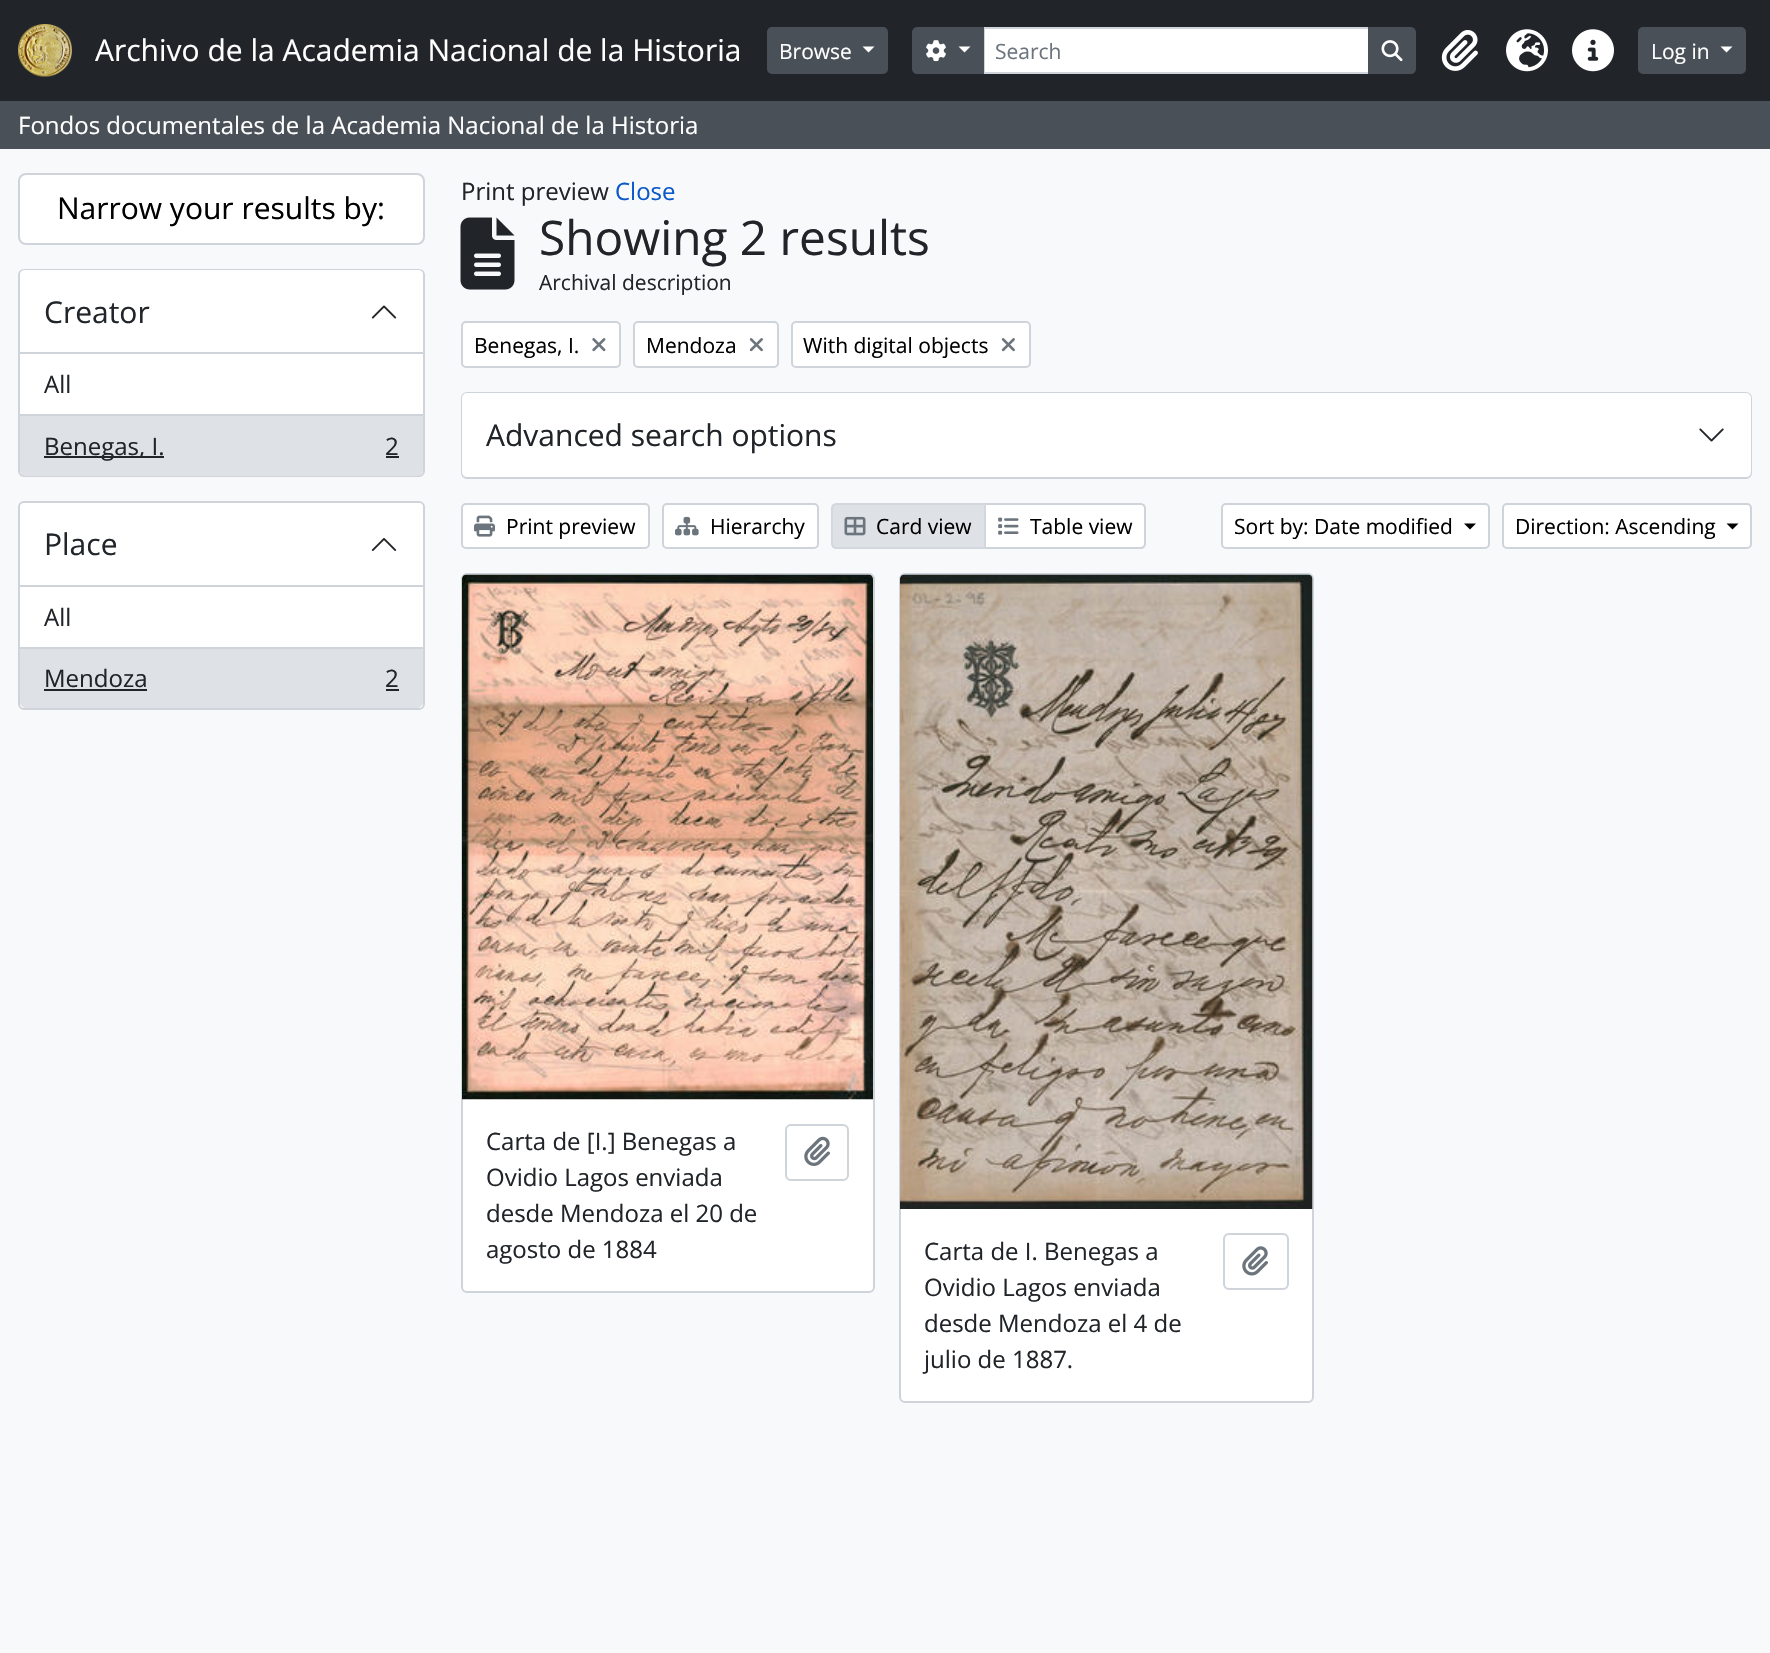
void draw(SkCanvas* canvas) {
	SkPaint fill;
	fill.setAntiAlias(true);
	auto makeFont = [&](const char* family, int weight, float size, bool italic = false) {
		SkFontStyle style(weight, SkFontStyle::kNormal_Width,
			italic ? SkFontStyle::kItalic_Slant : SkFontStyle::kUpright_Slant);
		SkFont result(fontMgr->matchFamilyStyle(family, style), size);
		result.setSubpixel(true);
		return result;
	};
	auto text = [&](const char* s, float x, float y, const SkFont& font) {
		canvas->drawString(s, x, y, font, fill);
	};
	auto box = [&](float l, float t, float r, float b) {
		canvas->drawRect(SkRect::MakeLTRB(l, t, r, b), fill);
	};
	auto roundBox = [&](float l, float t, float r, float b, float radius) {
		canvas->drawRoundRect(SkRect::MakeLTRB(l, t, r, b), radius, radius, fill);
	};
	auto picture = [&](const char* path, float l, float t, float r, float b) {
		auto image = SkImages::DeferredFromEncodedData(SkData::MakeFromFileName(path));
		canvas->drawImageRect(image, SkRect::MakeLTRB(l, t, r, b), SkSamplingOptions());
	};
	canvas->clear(0xFFF8F9FA);
	fill.setColor(0xFF212529);
	box(0, 0, 1770, 101);
	picture("image0.png", 18, 24, 72, 77);
	fill.setColor(0xFF495057);
	canvas->drawRoundRect(SkRect::MakeLTRB(768, 28, 887, 73), 4, 4, fill);
	fill.setStyle(SkPaint::kStroke_Style);
	fill.setStrokeWidth(2);
	canvas->drawRoundRect(SkRect::MakeLTRB(768, 28, 887, 73), 4, 4, fill);
	fill.setStyle(SkPaint::kFill_Style);
	fill.setColor(0xFFFFFFFF);
	canvas->drawPath(SkPathBuilder().moveTo(862.5f, 46.5f).lineTo(874.5f, 46.5f).lineTo(868.5f, 52.5f).close().detach(), fill);
	canvas->drawRect(SkRect::MakeLTRB(984, 28, 1369, 73), fill);
	fill.setStyle(SkPaint::kStroke_Style);
	fill.setColor(0xFFCED4DA);
	canvas->drawRect(SkRect::MakeLTRB(984, 28, 1369, 73), fill);
	fill.setStyle(SkPaint::kFill_Style);
	fill.setColor(0xFF495057);
	canvas->drawPath(SkPathBuilder().moveTo(917, 28).lineTo(983, 28).lineTo(983, 73).lineTo(917, 73).cubicTo(915, 73, 913, 71, 913, 69).lineTo(913, 32).cubicTo(913, 30, 915, 28, 917, 28).close().detach(), fill);
	fill.setStyle(SkPaint::kStroke_Style);
	canvas->drawPath(SkPathBuilder().moveTo(917, 28).lineTo(983, 28).lineTo(983, 73).lineTo(917, 73).cubicTo(915, 73, 913, 71, 913, 69).lineTo(913, 32).cubicTo(913, 30, 915, 28, 917, 28).close().detach(), fill);
	picture("image1.png", 926, 40, 946, 62);
	fill.setStyle(SkPaint::kFill_Style);
	fill.setColor(0xFFFFFFFF);
	canvas->drawPath(SkPathBuilder().moveTo(958.5f, 46.5f).lineTo(970.5f, 46.5f).lineTo(964.5f, 52.5f).close().detach(), fill);
	fill.setColor(0xFF495057);
	canvas->drawPath(SkPathBuilder().moveTo(1369, 28).lineTo(1411, 28).cubicTo(1413, 28, 1415, 30, 1415, 32).lineTo(1415, 69).cubicTo(1415, 71, 1413, 73, 1411, 73).lineTo(1369, 73).close().detach(), fill);
	fill.setStyle(SkPaint::kStroke_Style);
	canvas->drawPath(SkPathBuilder().moveTo(1369, 28).lineTo(1411, 28).cubicTo(1413, 28, 1415, 30, 1415, 32).lineTo(1415, 69).cubicTo(1415, 71, 1413, 73, 1411, 73).lineTo(1369, 73).close().detach(), fill);
	picture("image2.png", 1381, 40, 1403, 62);
	picture("image3.png", 1441, 30, 1478, 71);
	picture("image4.png", 1506, 29, 1548, 72);
	picture("image5.png", 1572, 29, 1614, 72);
	fill.setStyle(SkPaint::kFill_Style);
	canvas->drawRoundRect(SkRect::MakeLTRB(1639, 28, 1745, 73), 4, 4, fill);
	fill.setStyle(SkPaint::kStroke_Style);
	canvas->drawRoundRect(SkRect::MakeLTRB(1639, 28, 1745, 73), 4, 4, fill);
	fill.setStyle(SkPaint::kFill_Style);
	fill.setColor(0xFFFFFFFF);
	canvas->drawPath(SkPathBuilder().moveTo(1720.5f, 46.5f).lineTo(1732.5f, 46.5f).lineTo(1726.5f, 52.5f).close().detach(), fill);
	fill.setColor(0xFF495057);
	box(0, 101, 1770, 149);
	fill.setColor(0xFFFFFFFF);
	canvas->drawRoundRect(SkRect::MakeLTRB(19, 174, 424, 244), 7, 7, fill);
	fill.setStyle(SkPaint::kStroke_Style);
	fill.setColor(0xFFCED4DA);
	canvas->drawRoundRect(SkRect::MakeLTRB(19, 174, 424, 244), 7, 7, fill);
	fill.setStyle(SkPaint::kFill_Style);
	fill.setColor(0xFFFFFFFF);
	canvas->drawRoundRect(SkRect::MakeLTRB(19, 270, 424, 476), 5, 5, fill);
	fill.setStyle(SkPaint::kStroke_Style);
	fill.setColor(0xFFCED4DA);
	canvas->drawRoundRect(SkRect::MakeLTRB(19, 270, 424, 476), 5, 5, fill);
	fill.setStyle(SkPaint::kFill_Style);
	fill.setColor(0xFFFFFFFF);
	canvas->drawPath(SkPathBuilder().moveTo(25, 270).lineTo(418, 270).cubicTo(421, 270, 423, 272, 423, 275).lineTo(423, 354).lineTo(20, 354).lineTo(20, 275).cubicTo(20, 272, 22, 270, 25, 270).close().detach(), fill);
	fill.setColor(0xFFCED4DA);
	box(20, 352, 423, 354);
	picture("image6.png", 371, 305, 397, 319);
	box(20, 414, 423, 416);
	fill.setColor(0xFFDEE2E6);
	canvas->drawPath(SkPathBuilder().moveTo(20, 416).lineTo(423, 416).lineTo(423, 470).cubicTo(423, 473.5f, 420.5f, 476, 417, 476).lineTo(26, 476).cubicTo(22.5f, 476, 20, 473.5f, 20, 470).close().detach(), fill);
	fill.setColor(0xFF212529);
	box(44, 456, 164, 458);
	box(386, 456, 399, 458);
	fill.setColor(0xFFFFFFFF);
	canvas->drawRoundRect(SkRect::MakeLTRB(19, 502, 424, 709), 5, 5, fill);
	fill.setStyle(SkPaint::kStroke_Style);
	fill.setColor(0xFFCED4DA);
	canvas->drawRoundRect(SkRect::MakeLTRB(19, 502, 424, 709), 5, 5, fill);
	fill.setStyle(SkPaint::kFill_Style);
	fill.setColor(0xFFFFFFFF);
	canvas->drawPath(SkPathBuilder().moveTo(25, 503).lineTo(418, 503).cubicTo(421, 503, 423, 505, 423, 508).lineTo(423, 587).lineTo(20, 587).lineTo(20, 508).cubicTo(20, 505, 22, 503, 25, 503).close().detach(), fill);
	fill.setColor(0xFFCED4DA);
	box(20, 585, 423, 587);
	picture("image7.png", 371, 538, 397, 551);
	fill.setColor(0xFFDEE2E6);
	canvas->drawPath(SkPathBuilder().moveTo(20, 648).lineTo(423, 648).lineTo(423, 702).cubicTo(423, 705.5f, 420.5f, 708, 417, 708).lineTo(26, 708).cubicTo(22.5f, 708, 20, 705.5f, 20, 702).close().detach(), fill);
	fill.setColor(0xFFCED4DA);
	box(20, 647, 423, 649);
	fill.setColor(0xFF212529);
	box(44, 689, 147, 691);
	box(386, 689, 399, 691);
	picture("image8.png", 460, 217, 515, 290);
	fill.setColor(0xFFFFFFFF);
	canvas->drawRoundRect(SkRect::MakeLTRB(462, 322, 620, 367), 4, 4, fill);
	fill.setStyle(SkPaint::kStroke_Style);
	fill.setColor(0xFFCED4DA);
	canvas->drawRoundRect(SkRect::MakeLTRB(462, 322, 620, 367), 4, 4, fill);
	picture("image9.png", 592, 338, 606, 352);
	fill.setStyle(SkPaint::kFill_Style);
	fill.setColor(0xFFFFFFFF);
	canvas->drawRoundRect(SkRect::MakeLTRB(634, 322, 778, 367), 4, 4, fill);
	fill.setStyle(SkPaint::kStroke_Style);
	fill.setColor(0xFFCED4DA);
	canvas->drawRoundRect(SkRect::MakeLTRB(634, 322, 778, 367), 4, 4, fill);
	picture("image10.png", 749, 338, 763, 352);
	fill.setStyle(SkPaint::kFill_Style);
	fill.setColor(0xFFFFFFFF);
	canvas->drawRoundRect(SkRect::MakeLTRB(792, 322, 1030, 367), 4, 4, fill);
	fill.setStyle(SkPaint::kStroke_Style);
	fill.setColor(0xFFCED4DA);
	canvas->drawRoundRect(SkRect::MakeLTRB(792, 322, 1030, 367), 4, 4, fill);
	picture("image10.png", 1001, 338, 1015, 352);
	canvas->drawRoundRect(SkRect::MakeLTRB(462, 393, 1751, 478), 5, 5, fill);
	fill.setStyle(SkPaint::kFill_Style);
	fill.setColor(0xFFFFFFFF);
	roundBox(462, 393, 1751, 477, 5);
	picture("image11.png", 1699, 428, 1724, 442);
	canvas->drawRoundRect(SkRect::MakeLTRB(462, 504, 649, 548), 4, 4, fill);
	fill.setStyle(SkPaint::kStroke_Style);
	fill.setColor(0xFFCED4DA);
	canvas->drawRoundRect(SkRect::MakeLTRB(462, 504, 649, 548), 4, 4, fill);
	picture("image12.png", 474, 515, 495, 537);
	fill.setStyle(SkPaint::kFill_Style);
	fill.setColor(0xFFFFFFFF);
	canvas->drawRoundRect(SkRect::MakeLTRB(663, 504, 818, 548), 4, 4, fill);
	fill.setStyle(SkPaint::kStroke_Style);
	fill.setColor(0xFFCED4DA);
	canvas->drawRoundRect(SkRect::MakeLTRB(663, 504, 818, 548), 4, 4, fill);
	picture("image13.png", 675, 516, 699, 536);
	fill.setStyle(SkPaint::kFill_Style);
	fill.setColor(0xFFFFFFFF);
	canvas->drawPath(SkPathBuilder().moveTo(985, 504).lineTo(1141, 504).cubicTo(1143, 504, 1145, 506, 1145, 508).lineTo(1145, 544).cubicTo(1145, 546, 1143, 548, 1141, 548).lineTo(985, 548).close().detach(), fill);
	fill.setStyle(SkPaint::kStroke_Style);
	fill.setColor(0xFFCED4DA);
	canvas->drawPath(SkPathBuilder().moveTo(985, 504).lineTo(1141, 504).cubicTo(1143, 504, 1145, 506, 1145, 508).lineTo(1145, 544).cubicTo(1145, 546, 1143, 548, 1141, 548).lineTo(985, 548).close().detach(), fill);
	fill.setStyle(SkPaint::kFill_Style);
	fill.setColor(0xFFDEE2E6);
	canvas->drawPath(SkPathBuilder().moveTo(836, 504).lineTo(985, 504).lineTo(985, 548).lineTo(836, 548).cubicTo(834, 548, 832, 546, 832, 544).lineTo(832, 508).cubicTo(832, 506, 834, 504, 836, 504).close().detach(), fill);
	fill.setStyle(SkPaint::kStroke_Style);
	fill.setColor(0xFFD3D8DE);
	canvas->drawPath(SkPathBuilder().moveTo(836, 504).lineTo(985, 504).lineTo(985, 548).lineTo(836, 548).cubicTo(834, 548, 832, 546, 832, 544).lineTo(832, 508).cubicTo(832, 506, 834, 504, 836, 504).close().detach(), fill);
	picture("image14.png", 844, 516, 866, 536);
	picture("image15.png", 998, 517, 1019, 535);
	fill.setStyle(SkPaint::kFill_Style);
	fill.setColor(0xFFFFFFFF);
	canvas->drawRoundRect(SkRect::MakeLTRB(1222, 504, 1489, 548), 4, 4, fill);
	fill.setStyle(SkPaint::kStroke_Style);
	fill.setColor(0xFFCED4DA);
	canvas->drawRoundRect(SkRect::MakeLTRB(1222, 504, 1489, 548), 4, 4, fill);
	fill.setStyle(SkPaint::kFill_Style);
	fill.setColor(0xFF000000);
	canvas->drawPath(SkPathBuilder().moveTo(1464, 523.5f).lineTo(1476, 523.5f).lineTo(1470, 529.5f).close().detach(), fill);
	fill.setColor(0xFFFFFFFF);
	canvas->drawRoundRect(SkRect::MakeLTRB(1503, 504, 1751, 548), 4, 4, fill);
	fill.setStyle(SkPaint::kStroke_Style);
	fill.setColor(0xFFCED4DA);
	canvas->drawRoundRect(SkRect::MakeLTRB(1503, 504, 1751, 548), 4, 4, fill);
	fill.setStyle(SkPaint::kFill_Style);
	fill.setColor(0xFF000000);
	canvas->drawPath(SkPathBuilder().moveTo(1726.5f, 523.5f).lineTo(1738.5f, 523.5f).lineTo(1732.5f, 529.5f).close().detach(), fill);
	fill.setColor(0xFFFFFFFF);
	canvas->drawRoundRect(SkRect::MakeLTRB(462, 574, 874, 1292), 5, 5, fill);
	fill.setStyle(SkPaint::kStroke_Style);
	fill.setColor(0xFFCED4DA);
	canvas->drawRoundRect(SkRect::MakeLTRB(462, 574, 874, 1292), 5, 5, fill);
	picture("image16.png", 462, 574, 873, 1100);
	canvas->drawRoundRect(SkRect::MakeLTRB(786, 1125, 848, 1180), 5, 5, fill);
	picture("image17.png", 804, 1136, 830, 1166);
	fill.setStyle(SkPaint::kFill_Style);
	fill.setColor(0xFFFFFFFF);
	canvas->drawRoundRect(SkRect::MakeLTRB(900, 574, 1313, 1402), 5, 5, fill);
	fill.setStyle(SkPaint::kStroke_Style);
	fill.setColor(0xFFCED4DA);
	canvas->drawRoundRect(SkRect::MakeLTRB(900, 574, 1313, 1402), 5, 5, fill);
	picture("image18.png", 900, 574, 1313, 1209);
	canvas->drawRoundRect(SkRect::MakeLTRB(1224, 1234, 1288, 1289), 5, 5, fill);
	picture("image19.png", 1242, 1246, 1268, 1276);
	auto font1 = makeFont("Open Sans", 400, 30);
	fill.setStyle(SkPaint::kFill_Style);
	fill.setColor(0xFFFFFFFF);
	text("Archivo de la Academia Nacional de la Historia", 95, 61, font1);
	auto font2 = makeFont("Open Sans", 400, 21);
	text("Browse", 779, 59, font2);
	fill.setColor(0xFF6C757D);
	text("Search", 995, 59, font2);
	fill.setColor(0xFFFFFFFF);
	text("Log in", 1651, 59, font2);
	auto font3 = makeFont("Open Sans", 400, 24);
	text("Fondos documentales de la Academia Nacional de la Historia", 18, 134, font3);
	fill.setColor(0xFF000000);
	text("Narrow your results by:", 57, 219, font1);
	fill.setColor(0xFF212529);
	text("Creator", 44, 323, font1);
	text("All", 44, 393, font3);
	text("Benegas, I.", 44, 455, font3);
	text("2", 385, 455, font3);
	text("Place", 44, 555, font1);
	text("All", 44, 626, font3);
	text("Mendoza", 44, 687, font3);
	text("2", 385, 687, font3);
	text("Print preview", 461, 200, font3);
	fill.setColor(0xFF0A58CA);
	text("Close", 615, 200, font3);
	auto font4 = makeFont("Open Sans", 400, 47.75f);
	fill.setColor(0xFF212529);
	text("Showing 2 results", 539, 255, font4);
	text("Archival description", 539, 290, font2);
	fill.setColor(0xFF000000);
	text("Benegas, I.", 474, 353, font2);
	text("Mendoza", 646, 353, font2);
	text("With digital objects", 803, 353, font2);
	fill.setColor(0xFF212529);
	text("Advanced search options", 486, 446, font1);
	fill.setColor(0xFF000000);
	text("Print preview", 506, 534, font2);
	text("Hierarchy", 710, 534, font2);
	text("Card view", 876, 534, font2);
	text("Table view", 1030, 534, font2);
	text("Sort by: Date modified", 1234, 534, font2);
	text("Direction: Ascending", 1515, 534, font2);
	fill.setColor(0xFF212529);
	text("Carta de [I.] Benegas a", 486, 1150, font3);
	text("Ovidio Lagos enviada", 486, 1186, font3);
	text("desde Mendoza el 20 de", 486, 1222, font3);
	text("agosto de 1884", 486, 1258, font3);
	text("Carta de I. Benegas a", 924, 1260, font3);
	text("Ovidio Lagos enviada", 924, 1296, font3);
	text("desde Mendoza el 4 de", 924, 1332, font3);
	text("julio de 1887.", 924, 1368, font3);
}
